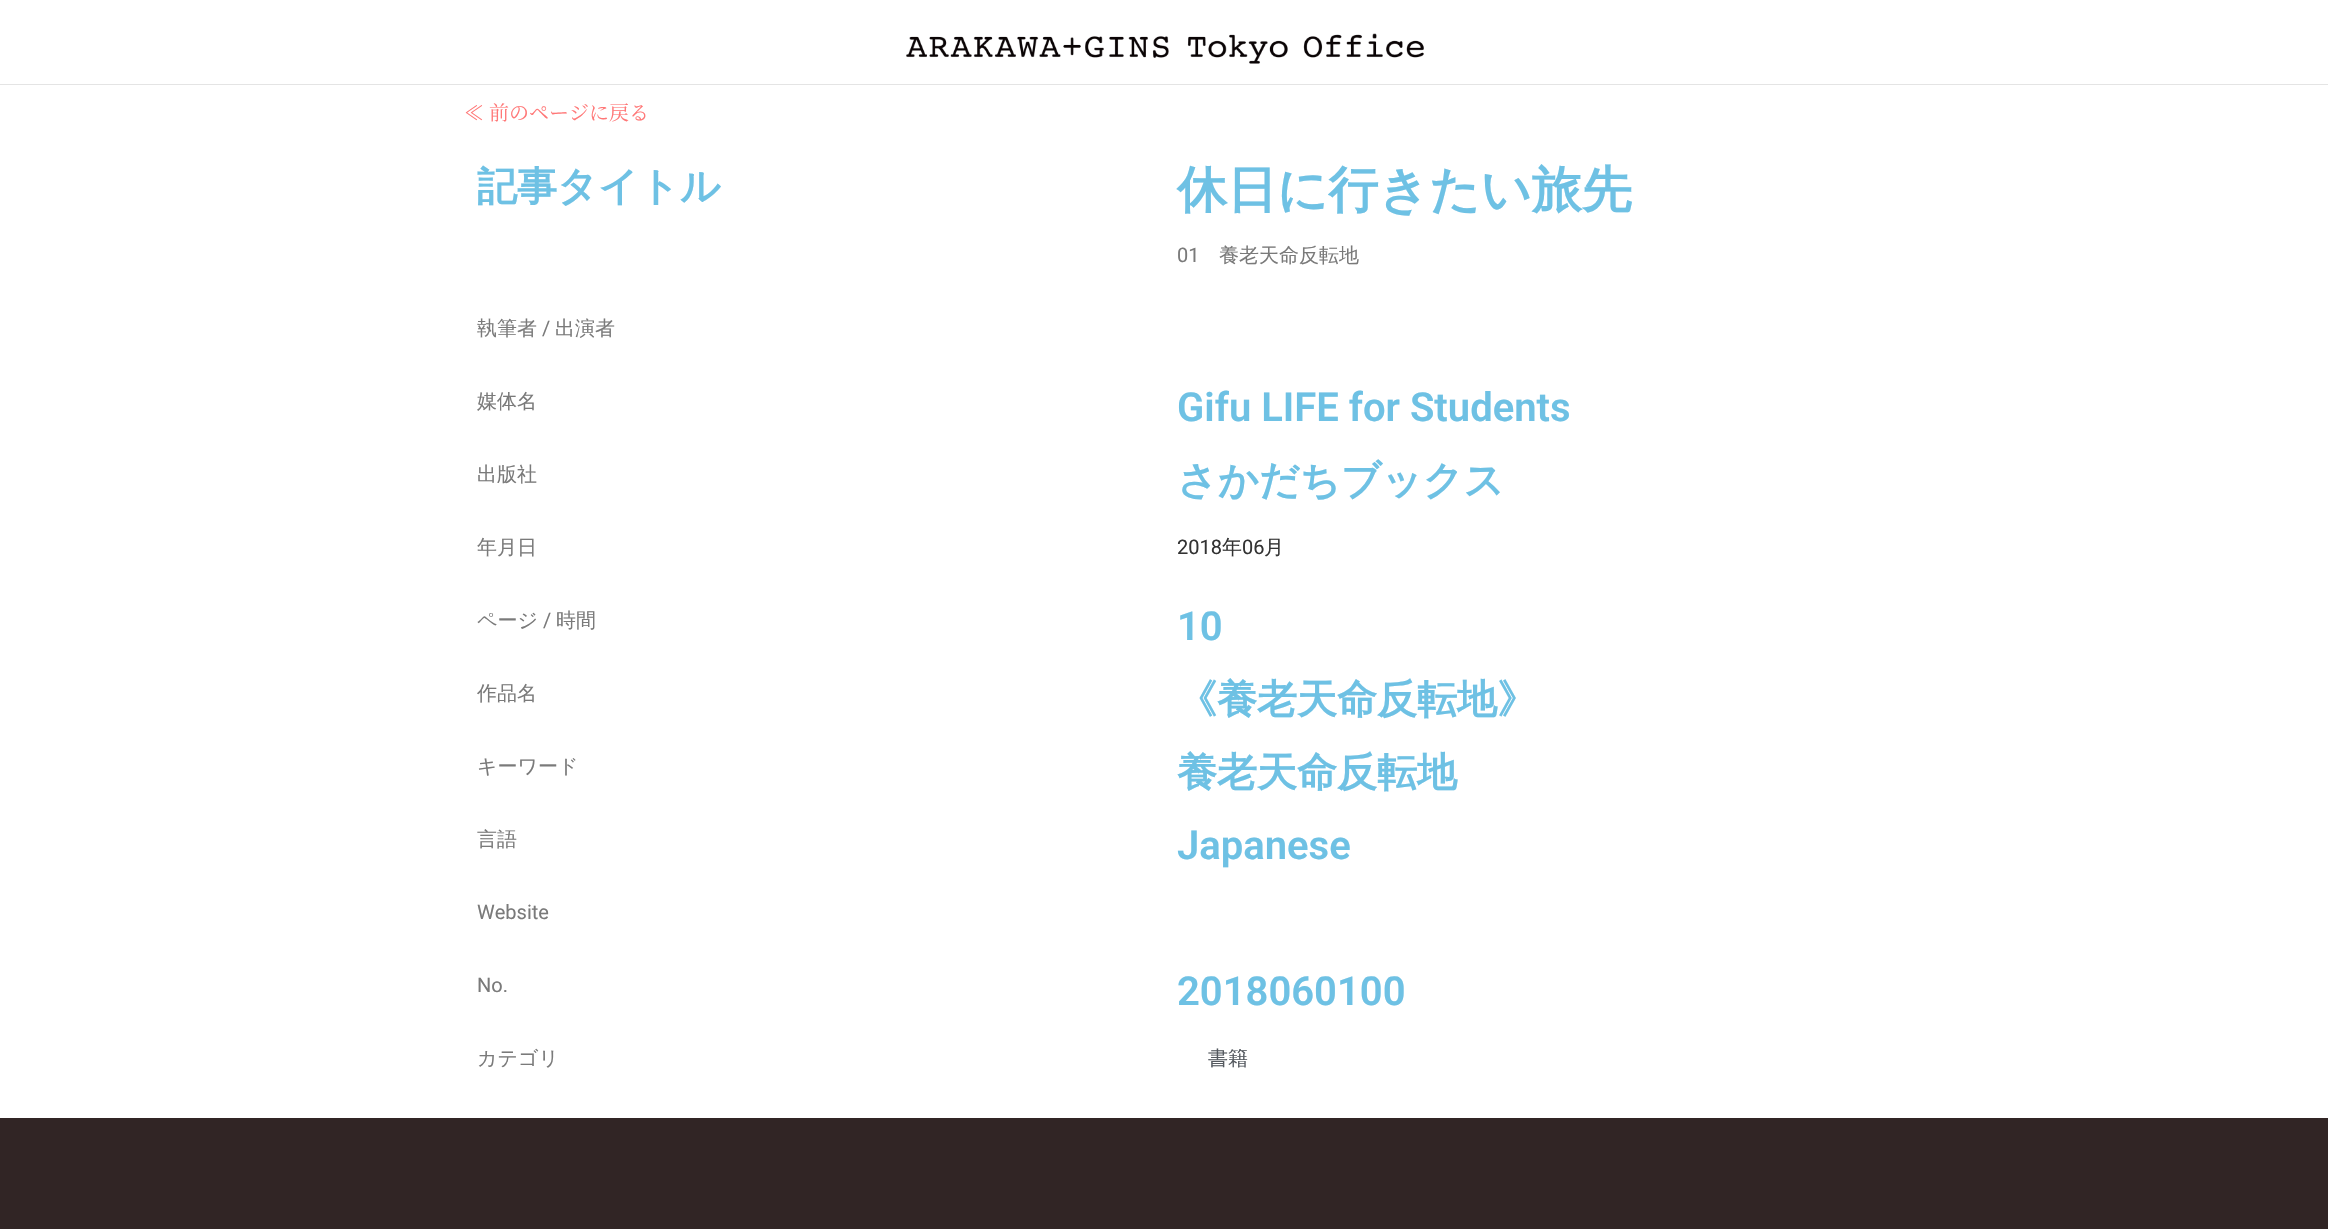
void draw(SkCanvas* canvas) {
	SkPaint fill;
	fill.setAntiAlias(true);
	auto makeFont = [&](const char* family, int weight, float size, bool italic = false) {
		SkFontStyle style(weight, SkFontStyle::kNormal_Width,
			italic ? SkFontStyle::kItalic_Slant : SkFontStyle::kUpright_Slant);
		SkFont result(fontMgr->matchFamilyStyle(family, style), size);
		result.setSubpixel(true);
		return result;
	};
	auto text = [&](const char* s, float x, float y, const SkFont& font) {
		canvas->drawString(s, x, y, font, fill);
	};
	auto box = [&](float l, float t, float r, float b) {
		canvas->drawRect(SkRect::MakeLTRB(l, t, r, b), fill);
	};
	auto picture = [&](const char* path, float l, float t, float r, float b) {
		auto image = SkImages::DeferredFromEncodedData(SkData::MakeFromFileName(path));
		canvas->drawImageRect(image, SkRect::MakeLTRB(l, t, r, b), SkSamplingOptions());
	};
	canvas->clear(0xFFFFFFFF);
	fill.setColor(0xFFE4E4E4);
	box(0, 84, 2328, 85);
	picture("image0.png", 906, 33, 1424, 64);
	fill.setColor(0xFF312525);
	box(0, 1118, 2328, 1229);
	auto font1 = makeFont("Noto Serif JP", 400, 20);
	fill.setColor(0xFFFF7777);
	text("≪ 前のページに戻る", 464, 120, font1);
	auto font2 = makeFont("WenQuanYi Zen Hei", 700, 40);
	fill.setColor(0xFF6EC1E4);
	text("記事タイトル", 477, 200, font2);
	auto font3 = makeFont("WenQuanYi Zen Hei", 700, 50);
	text("休日に行きたい旅先", 1177, 207, font3);
	auto font4 = makeFont("Roboto", 400, 20);
	fill.setColor(0xFF7A7A7A);
	text("01", 1177, 262, font4);
	auto font5 = makeFont("WenQuanYi Zen Hei", 500, 20);
	text("養老天命反転地", 1219, 262, font5);
	text("執筆者", 477, 335, font5);
	text("/", 542, 335, font4);
	text("出演者", 555, 335, font5);
	text("媒体名", 477, 408, font5);
	auto font6 = makeFont("Roboto", 600, 40);
	fill.setColor(0xFF6EC1E4);
	text("Gifu LIFE for Students", 1177, 421, font6);
	fill.setColor(0xFF7A7A7A);
	text("出版社", 477, 481, font5);
	fill.setColor(0xFF6EC1E4);
	text("さかだちブックス", 1177, 494, font2);
	fill.setColor(0xFF7A7A7A);
	text("年月日", 477, 554, font5);
	fill.setColor(0xFF333333);
	text("2018", 1177, 554, font4);
	text("年", 1222, 554, font5);
	text("06", 1242, 554, font4);
	text("月", 1264, 554, font5);
	fill.setColor(0xFF7A7A7A);
	text("ページ", 477, 627, font5);
	text("/", 543, 627, font4);
	text("時間", 556, 627, font5);
	fill.setColor(0xFF6EC1E4);
	text("10", 1177, 640, font6);
	fill.setColor(0xFF7A7A7A);
	text("作品名", 477, 700, font5);
	fill.setColor(0xFF6EC1E4);
	text("《養老天命反転地》", 1177, 713, font2);
	fill.setColor(0xFF7A7A7A);
	text("キーワード", 477, 773, font5);
	fill.setColor(0xFF6EC1E4);
	text("養老天命反転地", 1177, 786, font2);
	fill.setColor(0xFF7A7A7A);
	text("言語", 477, 846, font5);
	fill.setColor(0xFF6EC1E4);
	text("Japanese", 1177, 859, font6);
	fill.setColor(0xFF7A7A7A);
	text("Website", 477, 919, font4);
	text("No.", 477, 992, font4);
	fill.setColor(0xFF6EC1E4);
	text("2018060100", 1177, 1005, font6);
	fill.setColor(0xFF7A7A7A);
	text("カテゴリ", 477, 1065, font5);
	fill.setColor(0xFF54595F);
	text("書籍", 1208, 1065, font5);
}
